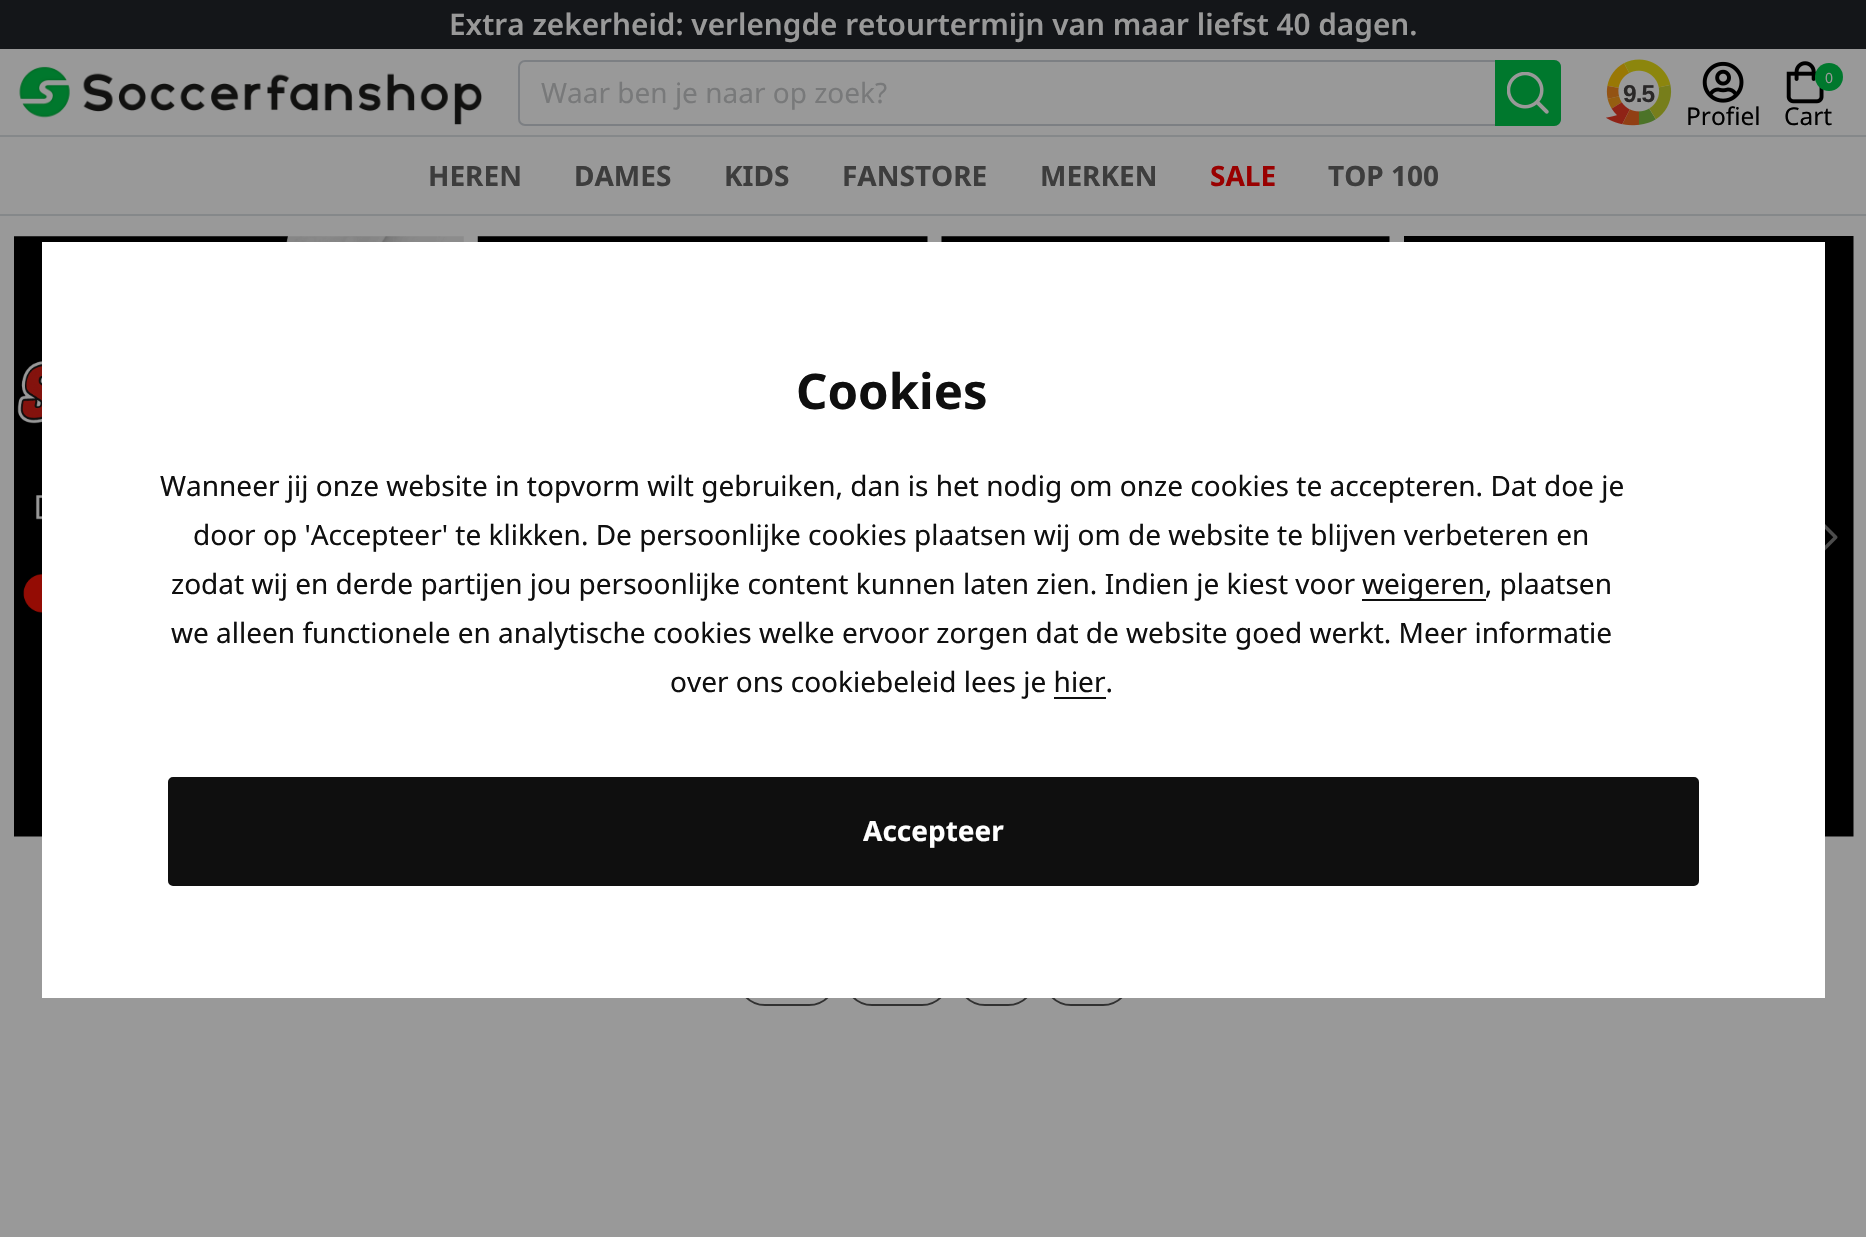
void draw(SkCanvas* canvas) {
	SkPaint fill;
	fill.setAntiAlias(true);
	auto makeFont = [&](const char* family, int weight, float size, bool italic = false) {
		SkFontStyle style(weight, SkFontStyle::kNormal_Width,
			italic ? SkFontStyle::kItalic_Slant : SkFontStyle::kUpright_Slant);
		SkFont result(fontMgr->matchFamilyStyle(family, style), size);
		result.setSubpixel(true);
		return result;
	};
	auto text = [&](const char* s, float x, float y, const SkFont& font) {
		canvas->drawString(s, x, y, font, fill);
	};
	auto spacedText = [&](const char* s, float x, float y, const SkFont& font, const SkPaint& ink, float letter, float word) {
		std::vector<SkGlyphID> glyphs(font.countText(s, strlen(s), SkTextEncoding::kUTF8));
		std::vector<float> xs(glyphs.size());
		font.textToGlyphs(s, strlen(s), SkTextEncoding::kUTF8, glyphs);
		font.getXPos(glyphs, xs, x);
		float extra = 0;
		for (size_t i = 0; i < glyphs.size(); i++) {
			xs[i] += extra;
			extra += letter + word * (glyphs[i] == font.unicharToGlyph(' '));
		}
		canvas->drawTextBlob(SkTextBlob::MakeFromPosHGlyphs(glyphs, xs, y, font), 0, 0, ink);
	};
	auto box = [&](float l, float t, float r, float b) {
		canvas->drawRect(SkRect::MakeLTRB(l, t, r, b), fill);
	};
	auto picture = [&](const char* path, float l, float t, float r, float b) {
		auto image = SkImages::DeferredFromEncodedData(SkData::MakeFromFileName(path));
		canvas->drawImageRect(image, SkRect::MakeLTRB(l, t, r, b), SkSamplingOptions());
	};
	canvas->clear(0xFF999999);
	fill.setColor(0xFF141619);
	box(0, 0, 1866, 49);
	picture("image0.png", 19, 66, 482, 125);
	fill.setStyle(SkPaint::kStroke_Style);
	fill.setStrokeWidth(2);
	fill.setColor(0xFF7C7F83);
	canvas->drawRoundRect(SkRect::MakeLTRB(519, 61, 1560, 125), 6, 6, fill);
	fill.setStyle(SkPaint::kFill_Style);
	fill.setColor(0xFF00782D);
	canvas->drawPath(SkPathBuilder().moveTo(1495, 60).lineTo(1554, 60).cubicTo(1558, 60, 1561, 63, 1561, 67).lineTo(1561, 119).cubicTo(1561, 123, 1558, 126, 1554, 126).lineTo(1495, 126).close().detach(), fill);
	picture("image1.png", 1507, 72, 1549, 114);
	picture("image2.png", 1606, 59, 1672, 126);
	picture("image3.png", 1786, 61, 1824, 104);
	canvas->drawCircle(1829, 77, 14, fill);
	picture("image4.png", 1702, 61, 1744, 103);
	fill.setColor(0xFF85888A);
	box(0, 135, 1866, 137);
	box(0, 214, 1866, 216);
	picture("image5.png", 14, 236, 464, 837);
	picture("image6.png", 477, 236, 928, 242);
	picture("image7.png", 941, 236, 1390, 242);
	picture("image8.png", 1404, 236, 1854, 837);
	picture("image9.png", 1825, 524, 1838, 551);
	fill.setStyle(SkPaint::kStroke_Style);
	fill.setColor(0xFF313131);
	canvas->drawRoundRect(SkRect::MakeLTRB(738, 951, 836, 1005), 27, 27, fill);
	canvas->drawRoundRect(SkRect::MakeLTRB(845, 951, 949, 1005), 27, 27, fill);
	canvas->drawRoundRect(SkRect::MakeLTRB(958, 951, 1035, 1005), 27, 27, fill);
	canvas->drawRoundRect(SkRect::MakeLTRB(1044, 951, 1130, 1005), 27, 27, fill);
	fill.setStyle(SkPaint::kFill_Style);
	fill.setColor(0xFFFFFFFF);
	box(42, 242, 1825, 998);
	fill.setColor(0xFF0F0F0F);
	box(1362, 599, 1486, 601);
	box(1054, 697, 1106, 699);
	canvas->drawRoundRect(SkRect::MakeLTRB(170, 779, 1697, 884), 3, 3, fill);
	fill.setStyle(SkPaint::kStroke_Style);
	fill.setStrokeWidth(4);
	canvas->drawRoundRect(SkRect::MakeLTRB(170, 779, 1697, 884), 3, 3, fill);
	auto font1 = makeFont("Noto Sans", 600, 29.75f);
	fill.setStyle(SkPaint::kFill_Style);
	fill.setColor(0xFF999999);
	text("Extra zekerheid: verlengde retourtermijn van maar liefst 40 dagen.", 449, 35, font1);
	auto font2 = makeFont("Noto Sans", 400, 28);
	fill.setColor(0xFF78797A);
	text("Waar ben je naar op zoek?", 541, 103, font2);
	auto font3 = makeFont("Liberation Sans", 700, 24.5f);
	fill.setColor(0xFF2A2828);
	spacedText("9.5", 1623, 102, font3, fill, -1, 0);
	auto font4 = makeFont("Noto Sans", 400, 14);
	fill.setColor(0xFF999999);
	text("0", 1825, 83, font4);
	auto font5 = makeFont("Noto Sans", 400, 24.5f);
	fill.setColor(0xFF000000);
	text("Cart", 1784, 125, font5);
	text("Profiel", 1686, 125, font5);
	auto font6 = makeFont("Noto Sans", 700, 28);
	fill.setColor(0xFF3D3D3D);
	text("HEREN", 428, 186, font6);
	text("DAMES", 574, 186, font6);
	text("KIDS", 724, 186, font6);
	text("FANSTORE", 842, 186, font6);
	text("MERKEN", 1040, 186, font6);
	fill.setColor(0xFF990000);
	text("SALE", 1210, 186, font6);
	fill.setColor(0xFF3D3D3D);
	text("TOP 100", 1328, 186, font6);
	auto font7 = makeFont("Noto Sans", 700, 49);
	fill.setColor(0xFF0F0F0F);
	text("Cookies", 796, 409, font7);
	text("Wanneer jij onze website in topvorm wilt gebruiken, dan is het nodig om onze cookies te accepteren. Dat doe je", 160, 496, font2);
	text("door op 'Accepteer' te klikken. De persoonlijke cookies plaatsen wij om de website te blijven verbeteren en", 193, 545, font2);
	text("zodat wij en derde partijen jou persoonlijke content kunnen laten zien. Indien je kiest voor", 171, 594, font2);
	text("weigeren, plaatsen", 1362, 594, font2);
	text("we alleen functionele en analytische cookies welke ervoor zorgen dat de website goed werkt. Meer informatie", 171, 643, font2);
	text("over ons cookiebeleid lees je hier.", 670, 692, font2);
	fill.setColor(0xFFFFFFFF);
	text("Accepteer", 863, 841, font6);
}
